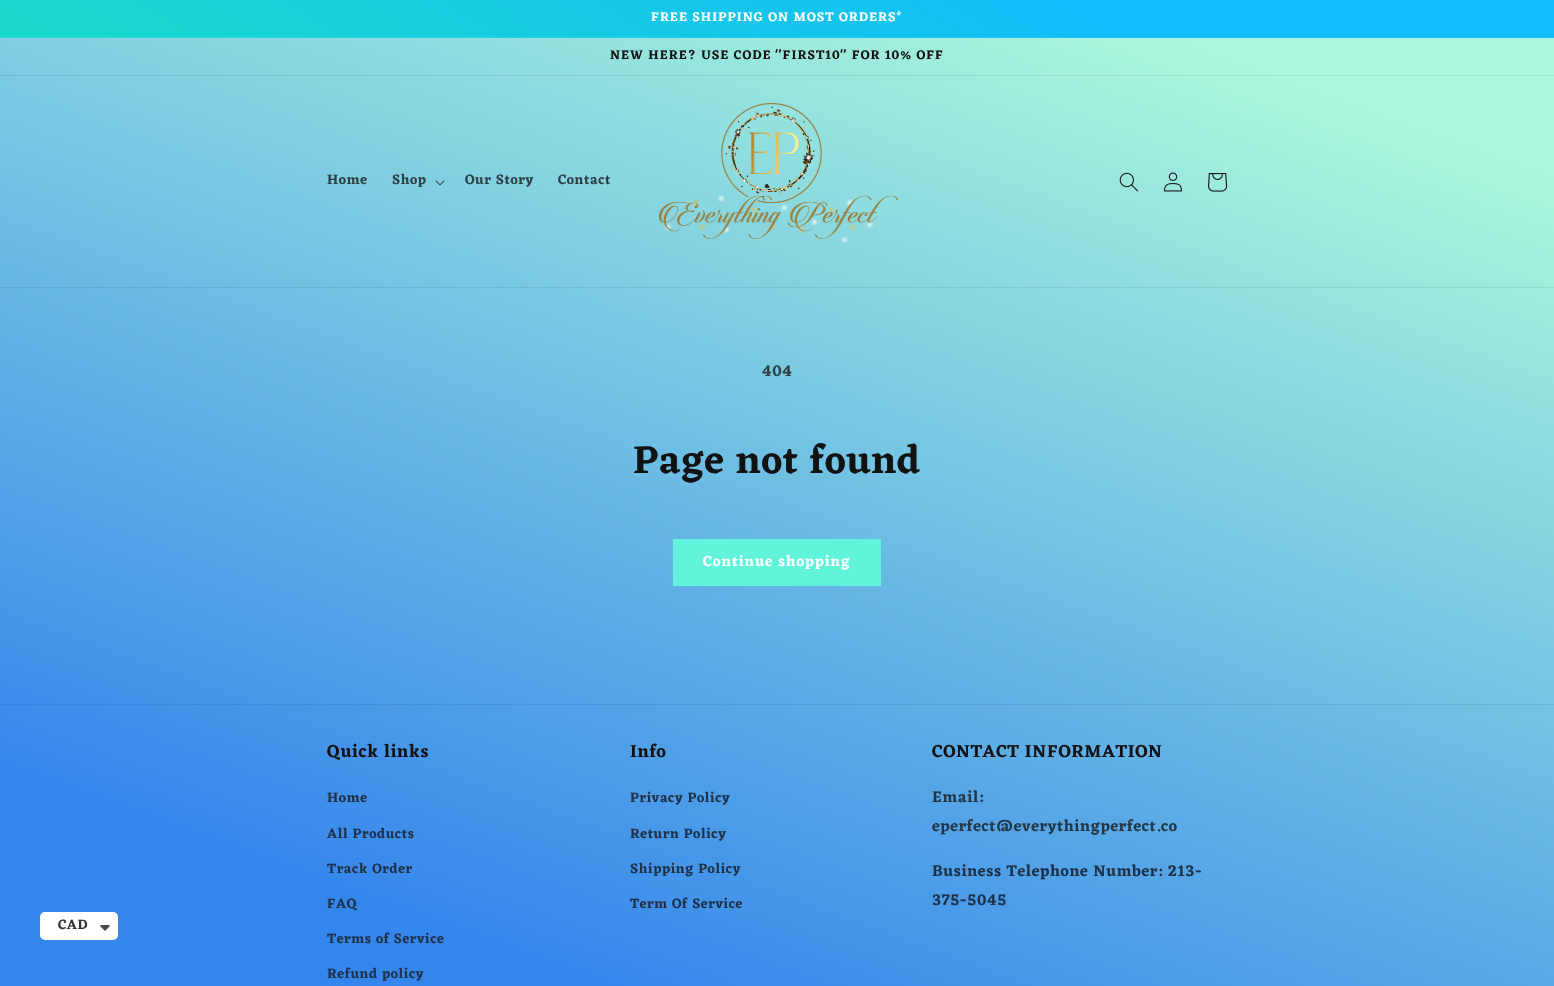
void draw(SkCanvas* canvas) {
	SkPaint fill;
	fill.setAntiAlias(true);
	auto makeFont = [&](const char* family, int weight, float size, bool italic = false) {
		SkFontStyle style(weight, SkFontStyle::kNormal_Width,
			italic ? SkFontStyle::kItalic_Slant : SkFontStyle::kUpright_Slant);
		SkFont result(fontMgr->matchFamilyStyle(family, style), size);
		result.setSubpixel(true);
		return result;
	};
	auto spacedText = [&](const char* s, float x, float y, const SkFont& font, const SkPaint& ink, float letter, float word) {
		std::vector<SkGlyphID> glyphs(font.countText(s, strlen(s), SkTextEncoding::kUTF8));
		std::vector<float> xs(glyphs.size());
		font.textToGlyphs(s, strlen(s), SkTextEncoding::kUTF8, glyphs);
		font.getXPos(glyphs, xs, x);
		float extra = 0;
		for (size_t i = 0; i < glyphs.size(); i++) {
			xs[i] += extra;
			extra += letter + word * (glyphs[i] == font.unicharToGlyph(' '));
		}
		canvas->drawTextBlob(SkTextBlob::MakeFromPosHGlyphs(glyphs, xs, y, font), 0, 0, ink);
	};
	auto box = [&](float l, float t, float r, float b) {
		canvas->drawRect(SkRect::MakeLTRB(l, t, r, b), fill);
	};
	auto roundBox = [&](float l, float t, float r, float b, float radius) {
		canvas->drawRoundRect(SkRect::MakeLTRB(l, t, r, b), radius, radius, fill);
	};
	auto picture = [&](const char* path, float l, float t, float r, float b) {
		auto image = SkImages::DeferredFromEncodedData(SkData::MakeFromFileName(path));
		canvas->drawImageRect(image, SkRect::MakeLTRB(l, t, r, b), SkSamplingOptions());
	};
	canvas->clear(0xFFFFFFFF);
	{
		const SkColor colors[] = {0xFF3485EC, 0xFFAAF8DB};
		const float stops[] = {0.13f, 0.89f};
		const SkPoint ends[] = {{528, 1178}, {1026, -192}};
		fill.setShader(SkGradientShader::MakeLinear(ends, colors, stops, 2, SkTileMode::kClamp));
		fill.setAlpha(255);
	}
	box(0, 38, 1554, 986);
	{
		const SkColor colors[] = {0xFF317CDB, 0xFF9EE6CB};
		const float stops[] = {0.13f, 0.89f};
		const SkPoint ends[] = {{528, 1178}, {1026, -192}};
		fill.setShader(SkGradientShader::MakeLinear(ends, colors, stops, 2, SkTileMode::kClamp));
		fill.setAlpha(255);
	}
	box(0, 75, 1554, 76);
	box(0, 287, 1554, 288);
	box(0, 704, 1554, 705);
	{
		const SkColor colors[] = {0xFF11BDFB, 0xFF21F996};
		const float stops[] = {0.15f, 0.85f};
		const SkPoint ends[] = {{1185, -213}, {369, 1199}};
		fill.setShader(SkGradientShader::MakeLinear(ends, colors, stops, 2, SkTileMode::kClamp));
		fill.setAlpha(255);
	}
	box(0, 0, 1554, 37);
	{
		const SkColor colors[] = {0xFF24C2FB, 0xFF33F99E};
		const float stops[] = {0.15f, 0.85f};
		const SkPoint ends[] = {{1185, -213}, {369, 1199}};
		fill.setShader(SkGradientShader::MakeLinear(ends, colors, stops, 2, SkTileMode::kClamp));
		fill.setAlpha(255);
	}
	box(0, 37, 1554, 38);
	picture("image0.png", 435, 180, 445, 186);
	picture("image1.png", 658, 103, 898, 244);
	picture("image2.png", 1119, 172, 1138, 192);
	picture("image3.png", 1164, 172, 1182, 192);
	picture("image4.png", 1208, 173, 1228, 192);
	fill.setShader(nullptr);
	fill.setColor(0xFF62F4DA);
	box(673, 539, 881, 586);
	fill.setColor(0xFFFFFFFF);
	roundBox(40, 912, 118, 940, 5);
	fill.setColor(0xFF474942);
	canvas->drawPath(SkPathBuilder().moveTo(102, 925).cubicTo(101, 925, 100.5f, 925.5f, 100, 926).lineTo(105, 931).lineTo(110, 926).lineTo(109, 925).close().detach(), fill);
	auto font1 = makeFont("Eczar", 600, 13);
	fill.setColor(0xFFFFFFFF);
	spacedText("FREE SHIPPING ON MOST ORDERS*", 651, 21, font1, fill, 1, 0);
	fill.setColor(0xFF121212);
	spacedText("NEW HERE? USE CODE ''FIRST10'' FOR 10% OFF", 610, 59, font1, fill, 1, 0);
	auto font2 = makeFont("Eczar", 600, 14);
	fill.setColor(0xFF2C4046);
	spacedText("Home", 327, 184, font2, fill, 0.6f, 0);
	spacedText("Shop", 392, 184, font2, fill, 0.6f, 0);
	spacedText("Our Story", 465, 184, font2, fill, 0.6f, 0);
	spacedText("Contact", 558, 184, font2, fill, 0.6f, 0);
	auto font3 = makeFont("Eczar", 600, 16);
	spacedText("404", 762, 376, font3, fill, 0.6f, 0);
	auto font4 = makeFont("Eczar", 600, 40);
	fill.setColor(0xFF121212);
	spacedText("Page not found", 633, 473, font4, fill, 0.6f, 0);
	auto font5 = makeFont("Eczar", 600, 15);
	fill.setColor(0xFFFFFFFF);
	spacedText("Continue shopping", 703, 566, font5, fill, 1, 0);
	fill.setColor(0xFF333333);
	spacedText("CAD", 58, 929, font2, fill, 0.6f, 0);
	auto font6 = makeFont("Eczar", 600, 18);
	fill.setColor(0xFF121212);
	spacedText("Quick links", 327, 757, font6, fill, 0.6f, 0);
	fill.setColor(0xFF1D3148);
	spacedText("Home", 327, 802, font2, fill, 0.6f, 0);
	spacedText("All Products", 327, 838, font2, fill, 0.6f, 0);
	spacedText("Track Order", 327, 873, font2, fill, 0.6f, 0);
	spacedText("FAQ", 327, 908, font2, fill, 0.6f, 0);
	spacedText("Terms of Service", 327, 943, font2, fill, 0.6f, 0);
	spacedText("Refund policy", 327, 978, font2, fill, 0.6f, 0);
	fill.setColor(0xFF121212);
	spacedText("Info", 630, 757, font6, fill, 0.6f, 0);
	fill.setColor(0xFF1D3148);
	spacedText("Privacy Policy", 630, 802, font2, fill, 0.6f, 0);
	spacedText("Return Policy", 630, 838, font2, fill, 0.6f, 0);
	spacedText("Shipping Policy", 630, 873, font2, fill, 0.6f, 0);
	spacedText("Term Of Service", 630, 908, font2, fill, 0.6f, 0);
	fill.setColor(0xFF121212);
	spacedText("CONTACT INFORMATION", 932, 757, font6, fill, 0.6f, 0);
	fill.setColor(0xFF233747);
	spacedText("Email:", 932, 802, font3, fill, 0.6f, 0);
	spacedText("eperfect@everythingperfect.co", 932, 831, font3, fill, 0.6f, 0);
	fill.setColor(0xFF1D3148);
	spacedText("Business Telephone Number: 213-", 932, 876, font3, fill, 0.6f, 0);
	spacedText("375-5045", 932, 905, font3, fill, 0.6f, 0);
}
